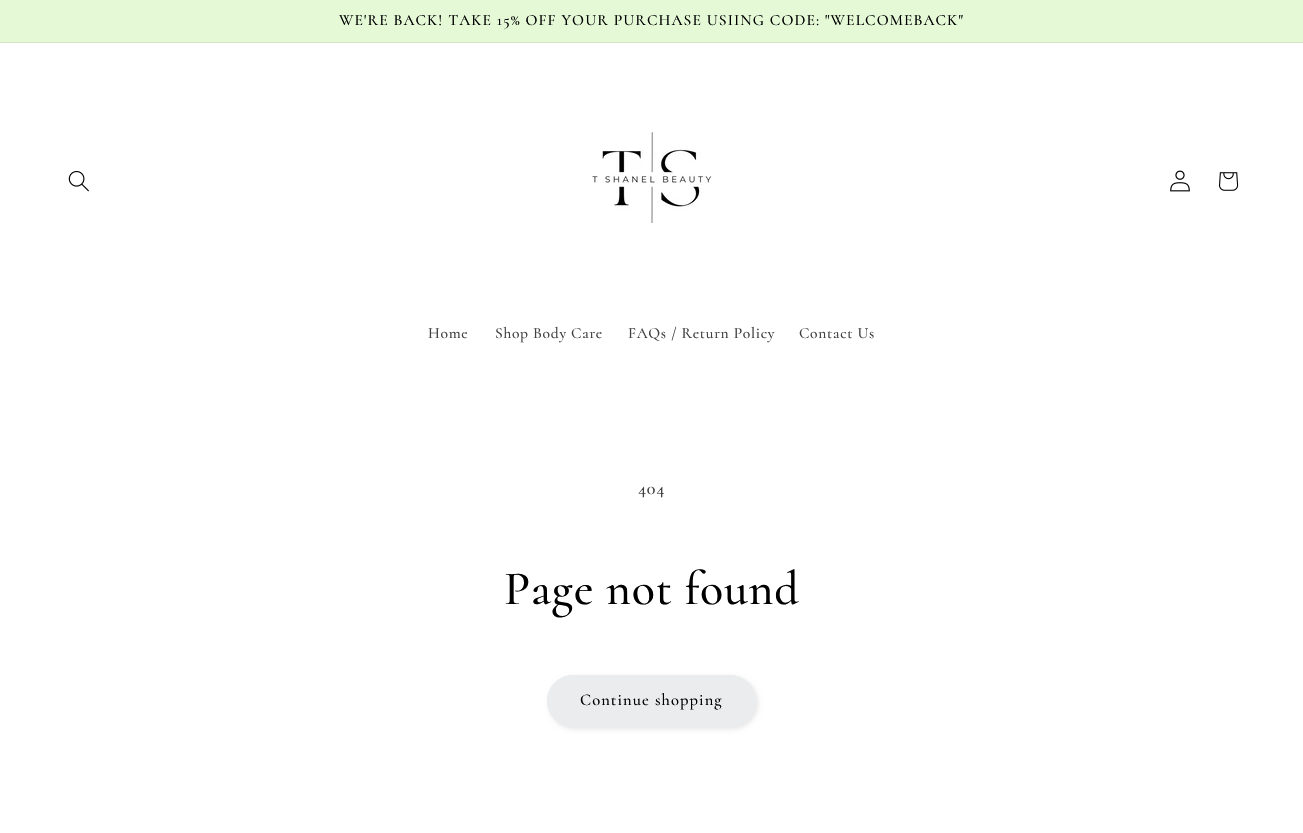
void draw(SkCanvas* canvas) {
	SkPaint fill;
	fill.setAntiAlias(true);
	auto makeFont = [&](const char* family, int weight, float size, bool italic = false) {
		SkFontStyle style(weight, SkFontStyle::kNormal_Width,
			italic ? SkFontStyle::kItalic_Slant : SkFontStyle::kUpright_Slant);
		SkFont result(fontMgr->matchFamilyStyle(family, style), size);
		result.setSubpixel(true);
		return result;
	};
	auto spacedText = [&](const char* s, float x, float y, const SkFont& font, const SkPaint& ink, float letter, float word) {
		std::vector<SkGlyphID> glyphs(font.countText(s, strlen(s), SkTextEncoding::kUTF8));
		std::vector<float> xs(glyphs.size());
		font.textToGlyphs(s, strlen(s), SkTextEncoding::kUTF8, glyphs);
		font.getXPos(glyphs, xs, x);
		float extra = 0;
		for (size_t i = 0; i < glyphs.size(); i++) {
			xs[i] += extra;
			extra += letter + word * (glyphs[i] == font.unicharToGlyph(' '));
		}
		canvas->drawTextBlob(SkTextBlob::MakeFromPosHGlyphs(glyphs, xs, y, font), 0, 0, ink);
	};
	auto box = [&](float l, float t, float r, float b) {
		canvas->drawRect(SkRect::MakeLTRB(l, t, r, b), fill);
	};
	auto roundBox = [&](float l, float t, float r, float b, float radius) {
		canvas->drawRoundRect(SkRect::MakeLTRB(l, t, r, b), radius, radius, fill);
	};
	auto picture = [&](const char* path, float l, float t, float r, float b) {
		auto image = SkImages::DeferredFromEncodedData(SkData::MakeFromFileName(path));
		canvas->drawImageRect(image, SkRect::MakeLTRB(l, t, r, b), SkSamplingOptions());
	};
	canvas->clear(0xFFFFFFFF);
	fill.setColor(0xFFE5F9D6);
	box(0, 0, 1303, 42);
	fill.setColor(0xFFD3E5C5);
	box(0, 42, 1303, 43);
	picture("image0.png", 68, 170, 89, 192);
	picture("image1.png", 592, 131, 712, 223);
	picture("image2.png", 1170, 170, 1190, 192);
	picture("image3.png", 1219, 172, 1239, 191);
	fill.setColor(0x1A000000);
	fill.setMaskFilter(SkMaskFilter::MakeBlur(kNormal_SkBlurStyle, 2.5f));
	canvas->drawRoundRect(SkRect::MakeLTRB(549, 677, 758, 729), 26, 26, fill);
	fill.setMaskFilter(nullptr);
	fill.setColor(0xFFEBECED);
	roundBox(547, 675, 756, 727, 26);
	fill.setStyle(SkPaint::kStroke_Style);
	fill.setStrokeWidth(1);
	canvas->drawRoundRect(SkRect::MakeLTRB(547.5f, 675.5f, 755.5f, 726.5f), 25.5f, 25.5f, fill);
	auto font1 = makeFont("Cormorant", 500, 15.6f);
	fill.setStyle(SkPaint::kFill_Style);
	fill.setColor(0xFF000000);
	spacedText("WE'RE BACK! TAKE 15% OFF YOUR PURCHASE USIING CODE: \"WELCOMEBACK\"", 339, 25, font1, fill, 1.1f, 0);
	auto font2 = makeFont("Cormorant", 500, 15.5f);
	fill.setColor(0xFF404040);
	spacedText("Home", 428, 338, font2, fill, 0.7f, 0);
	spacedText("Shop Body Care", 495, 338, font2, fill, 0.7f, 0);
	spacedText("FAQs / Return Policy", 628, 338, font2, fill, 0.7f, 0);
	spacedText("Contact Us", 799, 338, font2, fill, 0.7f, 0);
	auto font3 = makeFont("Cormorant", 500, 18);
	spacedText("404", 638, 494, font3, fill, 0.7f, 0);
	auto font4 = makeFont("Cormorant", 500, 48);
	fill.setColor(0xFF000000);
	spacedText("Page not found", 504, 604, font4, fill, 0.75f, 0);
	auto font5 = makeFont("Cormorant", 500, 16.5f);
	spacedText("Continue shopping", 580, 705, font5, fill, 1.1f, 0);
}
